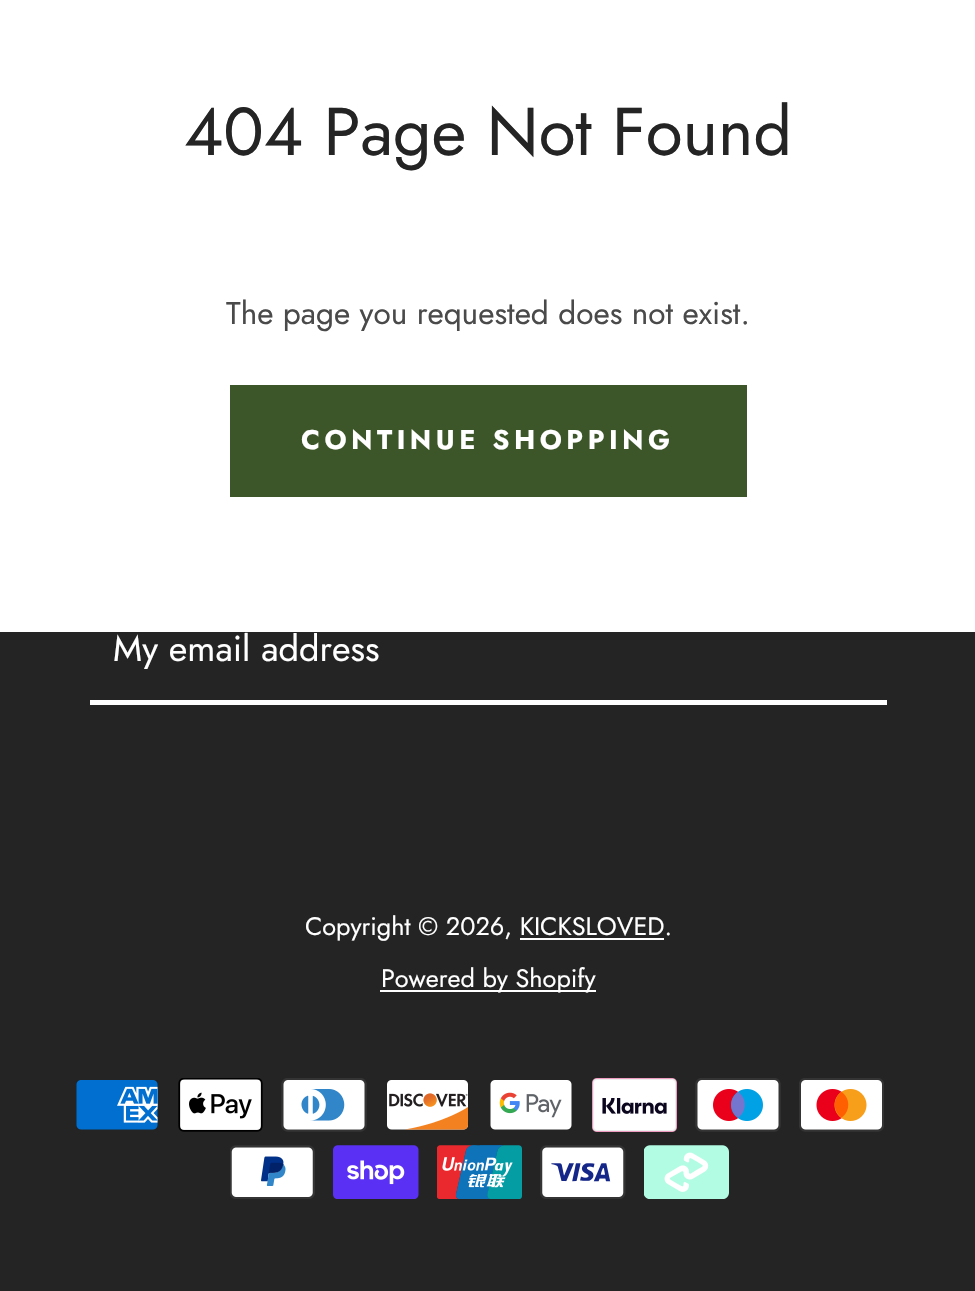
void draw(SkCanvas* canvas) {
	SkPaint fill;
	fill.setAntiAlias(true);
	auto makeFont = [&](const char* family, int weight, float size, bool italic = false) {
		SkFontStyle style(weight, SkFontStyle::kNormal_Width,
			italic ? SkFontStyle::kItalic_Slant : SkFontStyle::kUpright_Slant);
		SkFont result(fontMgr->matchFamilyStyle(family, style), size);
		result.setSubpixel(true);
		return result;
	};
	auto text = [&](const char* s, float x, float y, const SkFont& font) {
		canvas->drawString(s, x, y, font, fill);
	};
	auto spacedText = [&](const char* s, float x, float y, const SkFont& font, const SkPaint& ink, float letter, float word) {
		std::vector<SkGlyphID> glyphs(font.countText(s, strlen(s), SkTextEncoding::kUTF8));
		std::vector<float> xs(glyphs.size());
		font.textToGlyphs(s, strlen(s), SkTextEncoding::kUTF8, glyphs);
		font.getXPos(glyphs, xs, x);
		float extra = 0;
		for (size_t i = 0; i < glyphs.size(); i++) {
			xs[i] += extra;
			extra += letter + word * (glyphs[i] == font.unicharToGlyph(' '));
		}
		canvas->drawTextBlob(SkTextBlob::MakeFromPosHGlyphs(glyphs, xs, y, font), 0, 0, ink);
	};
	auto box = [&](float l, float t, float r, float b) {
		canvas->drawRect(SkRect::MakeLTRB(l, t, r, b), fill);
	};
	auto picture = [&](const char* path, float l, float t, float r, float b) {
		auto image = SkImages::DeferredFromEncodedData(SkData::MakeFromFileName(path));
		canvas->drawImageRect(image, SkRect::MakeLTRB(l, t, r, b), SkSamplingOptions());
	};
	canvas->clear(0xFF242424);
	fill.setColor(0xFFFFFFFF);
	box(0, 0, 975, 632);
	fill.setColor(0xFF3C5629);
	box(230, 385, 747, 497);
	fill.setColor(0xFFFFFFFF);
	box(90, 700, 887, 705);
	box(520, 938, 664, 940);
	box(380, 990, 596, 992);
	picture("image0.png", 76, 1080, 158, 1130);
	picture("image1.png", 178, 1078, 263, 1132);
	picture("image2.png", 281, 1078, 367, 1132);
	picture("image3.png", 387, 1080, 469, 1130);
	picture("image4.png", 490, 1080, 572, 1130);
	picture("image5.png", 592, 1078, 677, 1132);
	picture("image6.png", 695, 1078, 781, 1132);
	picture("image7.png", 799, 1078, 884, 1132);
	picture("image8.png", 230, 1145, 315, 1199);
	picture("image9.png", 333, 1145, 419, 1199);
	picture("image10.png", 437, 1145, 522, 1199);
	picture("image11.png", 540, 1145, 626, 1199);
	picture("image12.png", 644, 1145, 729, 1199);
	auto font1 = makeFont("Jost", 400, 67.5f);
	fill.setColor(0xFF242424);
	text("404 Page Not Found", 184, 155, font1);
	auto font2 = makeFont("Jost", 400, 31.5f);
	fill.setColor(0xFF4A4A4A);
	text("The page you requested does not exist.", 226, 324, font2);
	auto font3 = makeFont("Jost", 700, 27);
	fill.setColor(0xFFFFFFFF);
	spacedText("CONTINUE SHOPPING", 301, 449, font3, fill, 4.5f, 0);
	auto font4 = makeFont("Jost", 400, 36);
	text("My email address", 113, 661, font4);
	auto font5 = makeFont("Jost", 400, 25.25f);
	text("Copyright © 2026, KICKSLOVED.", 305, 935, font5);
	text("Powered by Shopify", 381, 987, font5);
}
